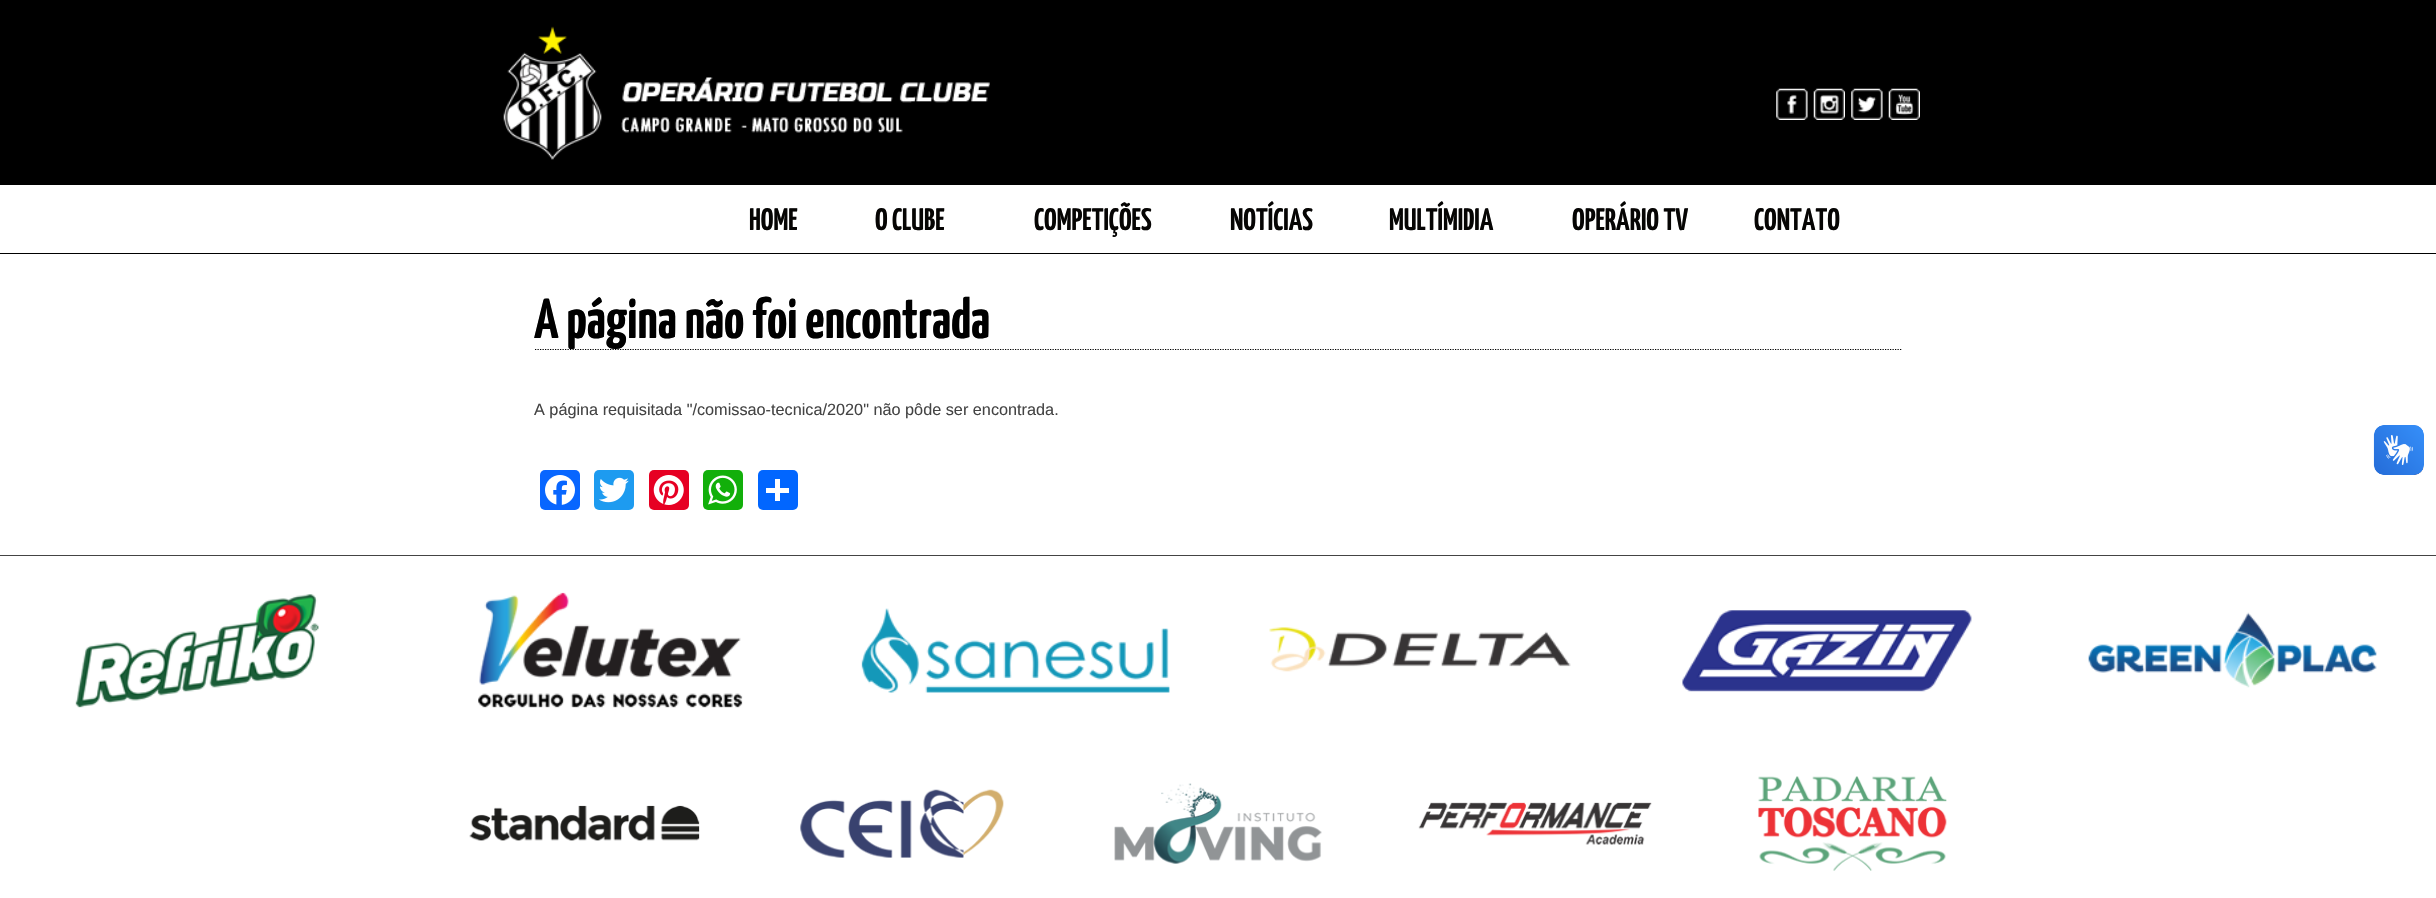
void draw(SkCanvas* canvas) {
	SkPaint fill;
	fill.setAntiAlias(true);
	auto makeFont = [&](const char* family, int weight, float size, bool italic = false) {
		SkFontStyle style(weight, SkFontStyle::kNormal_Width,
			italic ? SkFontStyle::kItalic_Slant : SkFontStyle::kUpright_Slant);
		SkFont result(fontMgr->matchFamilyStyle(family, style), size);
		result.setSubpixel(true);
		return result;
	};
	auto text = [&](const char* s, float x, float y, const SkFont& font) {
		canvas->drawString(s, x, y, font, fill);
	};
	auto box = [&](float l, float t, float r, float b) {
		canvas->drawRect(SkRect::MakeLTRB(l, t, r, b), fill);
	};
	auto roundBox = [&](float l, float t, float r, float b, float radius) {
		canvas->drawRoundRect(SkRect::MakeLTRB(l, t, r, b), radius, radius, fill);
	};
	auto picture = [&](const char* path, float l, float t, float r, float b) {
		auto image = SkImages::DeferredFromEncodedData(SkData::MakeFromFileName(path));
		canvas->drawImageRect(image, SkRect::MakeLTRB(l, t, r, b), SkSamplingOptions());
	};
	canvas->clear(0xFFFFFFFF);
	fill.setColor(0xFF000000);
	box(0, 0, 2436, 185);
	picture("image0.png", 503, 26, 990, 160);
	picture("image1.png", 1776, 88, 1808, 120);
	picture("image2.png", 1813, 88, 1845, 120);
	picture("image3.png", 1851, 88, 1883, 120);
	picture("image4.png", 1888, 88, 1920, 120);
	box(0, 253, 2436, 254);
	fill.setStyle(SkPaint::kStroke_Style);
	fill.setStrokeWidth(1.2f);
	fill.setPathEffect(SkDashPathEffect::Make({{1.25f, 1.25f}}, 0));
	canvas->drawPath(SkPathBuilder().moveTo(535, 349.5f).lineTo(1902.5f, 349.5f).detach(), fill);
	fill.setPathEffect(nullptr);
	fill.setStyle(SkPaint::kFill_Style);
	fill.setColor(0xFF0866FF);
	roundBox(540, 470, 580, 510, 5);
	picture("image5.png", 545, 475, 575, 505);
	fill.setColor(0xFF1D9BF0);
	roundBox(594, 470, 634, 510, 5);
	picture("image6.png", 599, 477, 629, 503);
	fill.setColor(0xFFE60023);
	roundBox(649, 470, 689, 510, 5);
	picture("image7.png", 653, 475, 684, 505);
	fill.setColor(0xFF12AF0A);
	roundBox(703, 470, 743, 510, 5);
	picture("image8.png", 708, 475, 737, 505);
	fill.setColor(0xFF0166FF);
	roundBox(758, 470, 798, 510, 5);
	fill.setColor(0xFFFFFFFF);
	box(775, 479, 780, 501);
	box(766, 488, 789, 493);
	picture("image9.png", 2373, 425, 2424, 475);
	picture("image10.png", 2374, 425, 2424, 475);
	fill.setColor(0xFF444444);
	box(0, 555, 2436, 556);
	picture("image11.png", 75, 594, 319, 708);
	picture("image12.png", 478, 592, 743, 708);
	picture("image13.png", 861, 608, 1170, 693);
	picture("image14.png", 1269, 627, 1571, 672);
	picture("image15.png", 1682, 610, 1972, 692);
	picture("image16.png", 2088, 612, 2377, 688);
	picture("image17.png", 469, 805, 700, 841);
	picture("image18.png", 800, 789, 1004, 858);
	picture("image19.png", 1114, 783, 1322, 864);
	picture("image20.png", 1418, 802, 1652, 845);
	picture("image21.png", 1758, 776, 1947, 871);
	auto font1 = makeFont("Yanone Kaffeesatz", 200, 31);
	fill.setColor(0xFF060504);
	text("HOME", 749, 230, font1);
	text("O CLUBE", 875, 230, font1);
	text("COMPETIÇÕES", 1034, 230, font1);
	text("NOTÍCIAS", 1230, 230, font1);
	text("MULTÍMIDIA", 1389, 230, font1);
	text("OPERÁRIO TV", 1572, 230, font1);
	text("CONTATO", 1754, 230, font1);
	auto font2 = makeFont("Yanone Kaffeesatz", 200, 56.25f);
	fill.setColor(0xFF000000);
	text("A página não foi encontrada", 534, 338, font2);
	auto font3 = makeFont("Liberation Sans", 400, 16.25f);
	fill.setColor(0xFF444444);
	text("A página requisitada \"/comissao-tecnica/2020\" não pôde ser encontrada.", 534, 415, font3);
}
